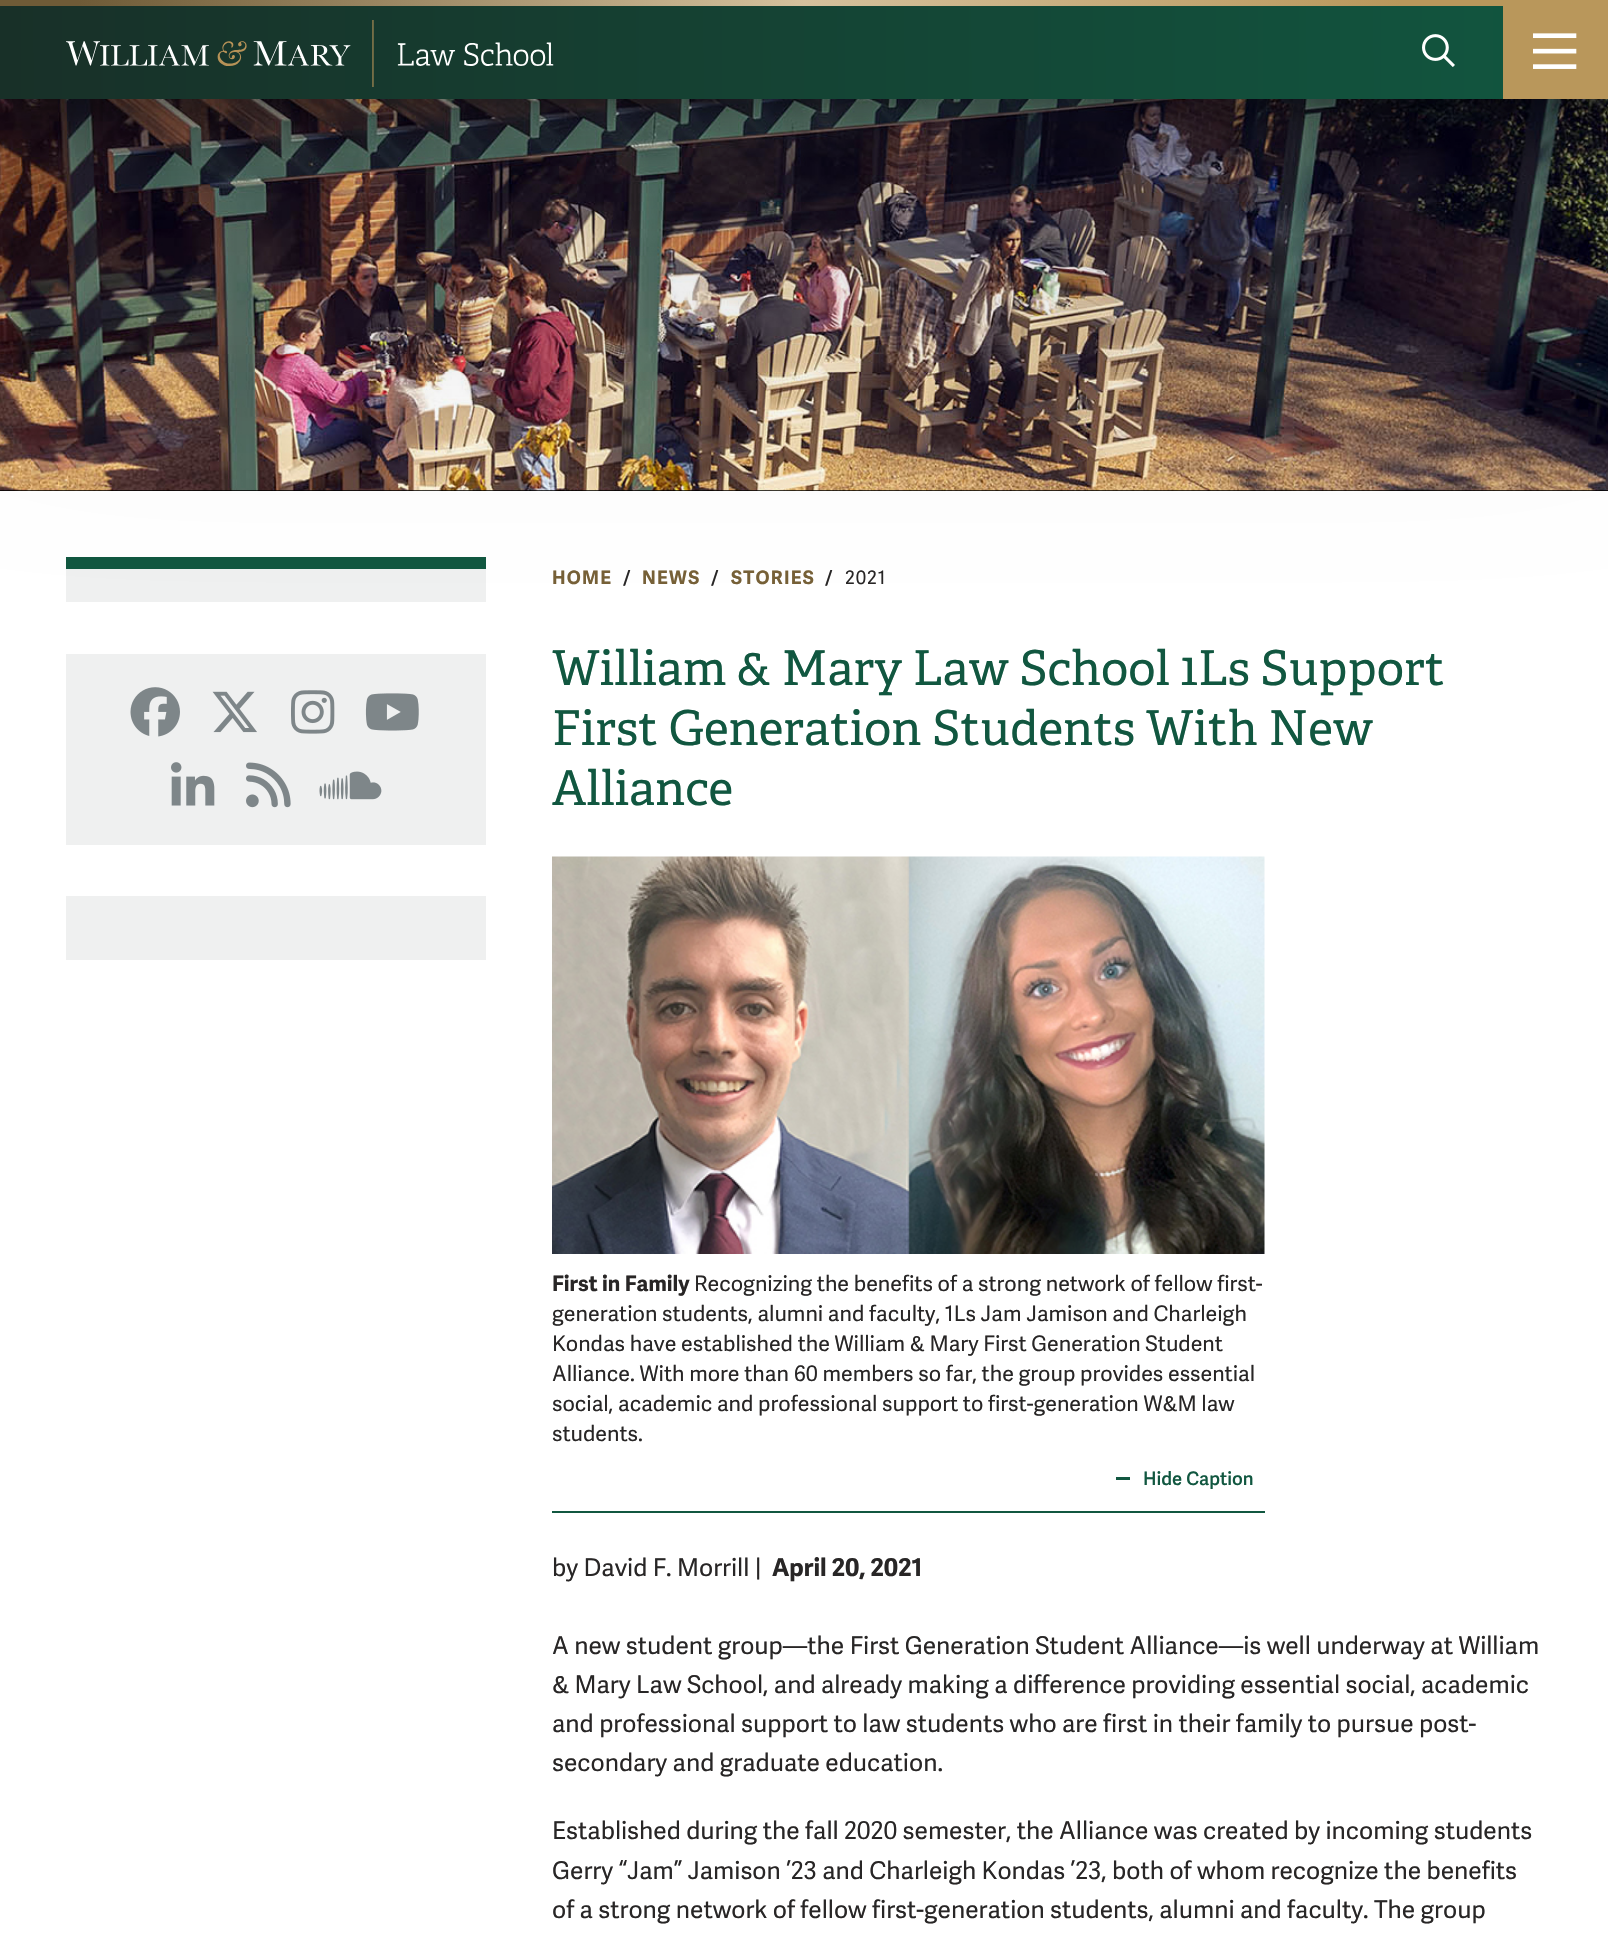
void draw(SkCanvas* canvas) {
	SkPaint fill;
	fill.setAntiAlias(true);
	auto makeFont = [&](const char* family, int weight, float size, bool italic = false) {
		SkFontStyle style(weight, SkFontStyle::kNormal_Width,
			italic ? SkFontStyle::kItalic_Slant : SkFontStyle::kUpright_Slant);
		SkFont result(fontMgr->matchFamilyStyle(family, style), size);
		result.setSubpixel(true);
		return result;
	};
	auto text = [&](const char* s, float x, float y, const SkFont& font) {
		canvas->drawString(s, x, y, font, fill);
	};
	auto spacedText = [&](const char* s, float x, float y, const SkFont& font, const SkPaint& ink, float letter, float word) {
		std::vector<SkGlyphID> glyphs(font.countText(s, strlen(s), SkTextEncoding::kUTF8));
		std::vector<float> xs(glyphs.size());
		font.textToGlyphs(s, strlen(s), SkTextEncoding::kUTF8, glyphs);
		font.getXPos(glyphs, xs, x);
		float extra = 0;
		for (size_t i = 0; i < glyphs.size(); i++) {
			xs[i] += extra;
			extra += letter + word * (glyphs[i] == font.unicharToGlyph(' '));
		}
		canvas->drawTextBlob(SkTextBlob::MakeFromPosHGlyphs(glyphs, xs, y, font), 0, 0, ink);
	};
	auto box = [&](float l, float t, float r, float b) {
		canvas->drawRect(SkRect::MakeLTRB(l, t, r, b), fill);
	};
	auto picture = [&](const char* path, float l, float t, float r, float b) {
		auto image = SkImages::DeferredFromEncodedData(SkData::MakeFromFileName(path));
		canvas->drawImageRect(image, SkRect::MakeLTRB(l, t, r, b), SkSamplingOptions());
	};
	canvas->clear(0xFFFFFFFF);
	fill.setColor(0xFF000000);
	box(0, 490, 1608, 491);
	picture("image4.png", 0, 99, 1608, 491);
	fill.setColor(0x12000000);
	fill.setMaskFilter(SkMaskFilter::MakeBlur(kNormal_SkBlurStyle, 4.5f));
	canvas->drawRect(SkRect::MakeLTRB(0, 6, 1608, 105), fill);
	fill.setMaskFilter(nullptr);
	fill.setColor(0x1C000000);
	fill.setMaskFilter(SkMaskFilter::MakeBlur(kNormal_SkBlurStyle, 11));
	canvas->drawRect(SkRect::MakeLTRB(0, 15, 1608, 114), fill);
	fill.setMaskFilter(nullptr);
	fill.setColor(0x21000000);
	fill.setMaskFilter(SkMaskFilter::MakeBlur(kNormal_SkBlurStyle, 23));
	canvas->drawRect(SkRect::MakeLTRB(0, 32, 1608, 131), fill);
	fill.setMaskFilter(nullptr);
	fill.setColor(0x2B000000);
	fill.setMaskFilter(SkMaskFilter::MakeBlur(kNormal_SkBlurStyle, 47));
	canvas->drawRect(SkRect::MakeLTRB(0, 65, 1608, 164), fill);
	fill.setMaskFilter(nullptr);
	fill.setColor(0xFFEFF0F0);
	box(66, 569, 486, 602);
	fill.setColor(0xFF115740);
	box(66, 557, 486, 569);
	fill.setColor(0xFFEFF0F0);
	box(66, 654, 486, 845);
	fill.setColor(0x3D000000);
	fill.setMaskFilter(SkMaskFilter::MakeBlur(kNormal_SkBlurStyle, 129));
	canvas->drawRect(SkRect::MakeLTRB(0, 177, 1608, 276), fill);
	fill.setMaskFilter(nullptr);
	{
		const SkColor colors[] = {0xFF115740, 0xFF183028};
		const float stops[] = {0, 1};
		const SkPoint ends[] = {{1608, 52}, {0, 53}};
		fill.setShader(SkGradientShader::MakeLinear(ends, colors, stops, 2, SkTileMode::kClamp));
		fill.setAlpha(255);
	}
	box(0, 6, 1503, 99);
	picture("image0.png", 0, 0, 1608, 6);
	picture("image1.png", 66, 20, 554, 87);
	picture("image2.png", 1422, 34, 1455, 67);
	fill.setShader(nullptr);
	fill.setColor(0xFFB9975B);
	box(1503, 6, 1608, 99);
	picture("image3.png", 1533, 33, 1577, 69);
	picture("image5.png", 130, 687, 180, 737);
	picture("image6.png", 212, 691, 257, 733);
	picture("image7.png", 291, 690, 335, 734);
	picture("image8.png", 365, 693, 419, 731);
	picture("image9.png", 171, 762, 215, 806);
	picture("image10.png", 246, 762, 291, 808);
	picture("image11.png", 319, 771, 382, 800);
	fill.setColor(0xFFEFF0F0);
	box(66, 896, 486, 960);
	fill.setColor(0xFF115740);
	box(552, 1511, 1265, 1513);
	picture("image12.png", 552, 856, 1265, 1254);
	box(1116, 1477, 1130, 1480);
	auto font1 = makeFont("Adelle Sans", 700, 18.5f);
	fill.setColor(0xFF766037);
	spacedText("HOME", 552, 584, font1, fill, 1.25f, 0);
	auto font2 = makeFont("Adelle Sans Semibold", 600, 18.5f);
	fill.setColor(0xFF282626);
	spacedText("/", 623, 584, font2, fill, 1, 0);
	fill.setColor(0xFF766037);
	spacedText("NEWS", 642, 584, font1, fill, 1.25f, 0);
	fill.setColor(0xFF282626);
	spacedText("/", 711, 584, font2, fill, 1, 0);
	fill.setColor(0xFF766037);
	spacedText("STORIES", 731, 584, font1, fill, 1.25f, 0);
	fill.setColor(0xFF282626);
	spacedText("/", 825, 584, font2, fill, 1, 0);
	auto font3 = makeFont("Adelle Sans", 400, 18.5f);
	spacedText("2021", 845, 584, font3, fill, 1, 0);
	auto font4 = makeFont("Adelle", 400, 48);
	fill.setColor(0xFF115740);
	text("William & Mary Law School 1Ls Support", 552, 685, font4);
	text("First Generation Students With New", 552, 745, font4);
	text("Alliance", 552, 805, font4);
	auto font5 = makeFont("Adelle Sans", 700, 21.4f);
	fill.setColor(0xFF282626);
	text("First in Family", 552, 1291, font5);
	auto font6 = makeFont("Adelle Sans", 400, 21.4f);
	text("Recognizing the benefits of a strong network of fellow first-", 694, 1291, font6);
	text("generation students, alumni and faculty, 1Ls Jam Jamison and Charleigh", 552, 1321, font6);
	text("Kondas have established the William & Mary First Generation Student", 552, 1351, font6);
	text("Alliance. With more than 60 members so far, the group provides essential", 552, 1381, font6);
	text("social, academic and professional support to first-generation W&M law", 552, 1411, font6);
	text("students.", 552, 1441, font6);
	fill.setColor(0xFF115740);
	text("Hide Caption", 1143, 1485, font2);
	auto font7 = makeFont("Adelle Sans", 400, 24.5f);
	fill.setColor(0xFF282626);
	text("by David F. Morrill |", 552, 1576, font7);
	auto font8 = makeFont("Adelle Sans", 700, 24.5f);
	text("April 20, 2021", 772, 1576, font8);
	text("A new student group—the First Generation Student Alliance—is well underway at William", 552, 1654, font7);
	text("& Mary Law School, and already making a difference providing essential social, academic", 552, 1693, font7);
	text("and professional support to law students who are first in their family to pursue post-", 552, 1732, font7);
	text("secondary and graduate education.", 552, 1771, font7);
	text("Established during the fall 2020 semester, the Alliance was created by incoming students", 552, 1839, font7);
	text("Gerry “Jam” Jamison ’23 and Charleigh Kondas ’23, both of whom recognize the benefits", 552, 1879, font7);
	text("of a strong network of fellow first-generation students, alumni and faculty. The group", 552, 1918, font7);
}
